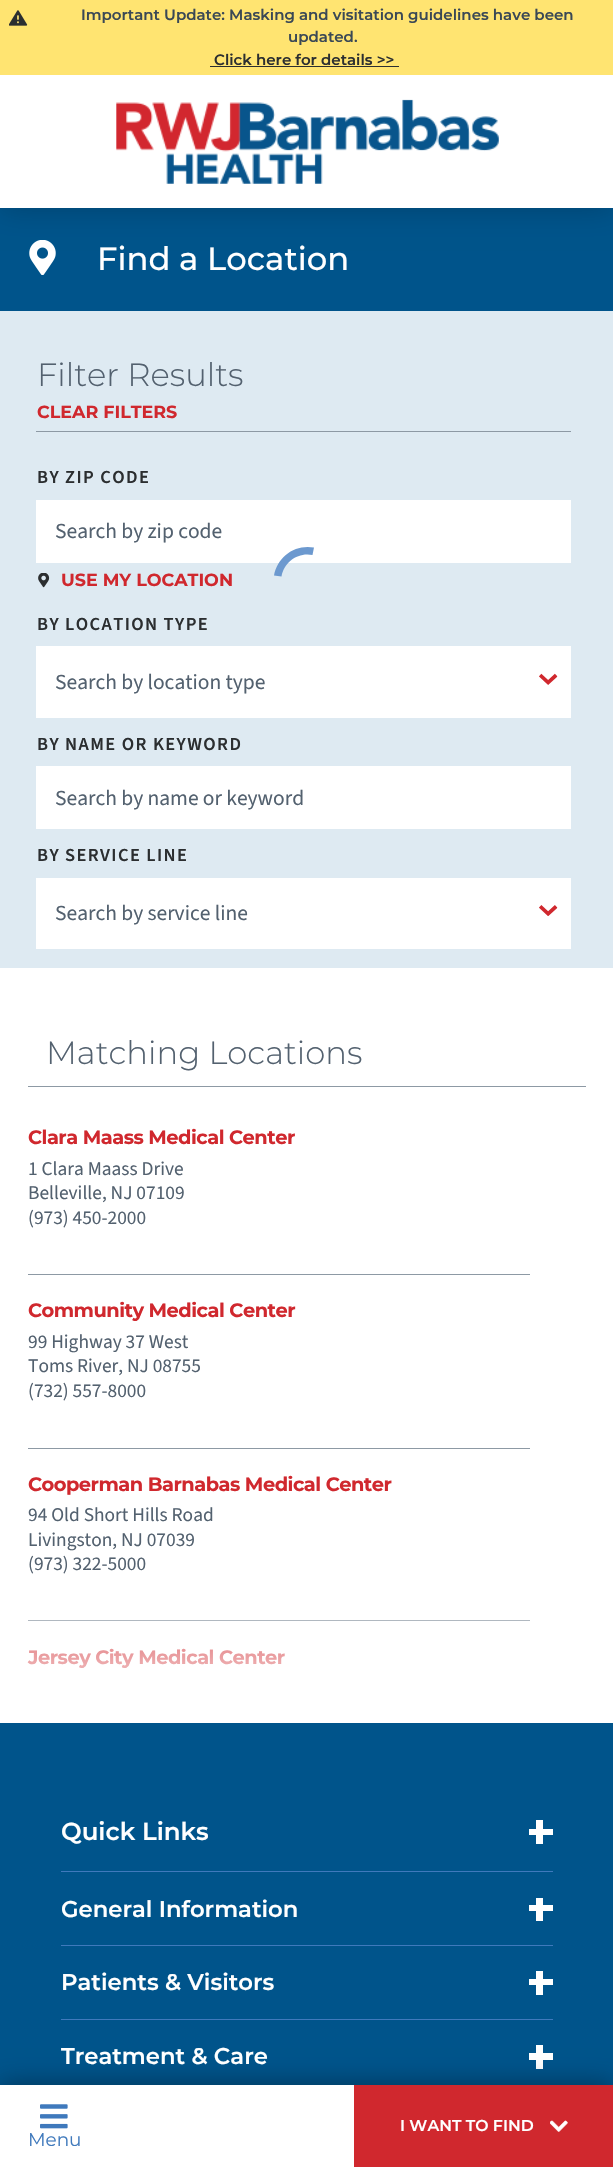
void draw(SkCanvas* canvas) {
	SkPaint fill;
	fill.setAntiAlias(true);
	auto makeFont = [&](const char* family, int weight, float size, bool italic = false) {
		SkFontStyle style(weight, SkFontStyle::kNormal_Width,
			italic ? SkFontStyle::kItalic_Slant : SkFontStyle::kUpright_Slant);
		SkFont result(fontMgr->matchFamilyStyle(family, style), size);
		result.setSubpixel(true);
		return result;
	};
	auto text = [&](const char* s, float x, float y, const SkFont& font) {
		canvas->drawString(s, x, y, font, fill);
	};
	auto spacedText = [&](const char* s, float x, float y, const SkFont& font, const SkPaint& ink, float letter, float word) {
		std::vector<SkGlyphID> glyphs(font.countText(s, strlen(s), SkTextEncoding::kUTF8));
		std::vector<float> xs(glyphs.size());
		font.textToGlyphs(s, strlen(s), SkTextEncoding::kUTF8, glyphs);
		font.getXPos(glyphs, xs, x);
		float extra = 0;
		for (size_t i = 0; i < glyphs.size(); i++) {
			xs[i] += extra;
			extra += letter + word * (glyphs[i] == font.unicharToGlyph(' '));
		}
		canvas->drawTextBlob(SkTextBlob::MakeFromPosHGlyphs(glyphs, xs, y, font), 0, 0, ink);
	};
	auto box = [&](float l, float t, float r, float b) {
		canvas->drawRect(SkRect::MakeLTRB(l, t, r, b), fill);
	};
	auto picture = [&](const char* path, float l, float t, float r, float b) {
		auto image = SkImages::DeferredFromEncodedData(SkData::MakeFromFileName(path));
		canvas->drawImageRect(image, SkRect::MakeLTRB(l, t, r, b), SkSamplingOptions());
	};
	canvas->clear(0xFFFFFFFF);
	fill.setColor(0xFF00548B);
	box(0, 208, 613, 311);
	picture("image4.png", 29, 240, 56, 275);
	fill.setColor(0x33000000);
	fill.setMaskFilter(SkMaskFilter::MakeBlur(kNormal_SkBlurStyle, 14));
	canvas->drawRect(SkRect::MakeLTRB(0, 1, 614, 209), fill);
	fill.setMaskFilter(nullptr);
	fill.setColor(0xFFFFE471);
	box(0, 0, 613, 75);
	picture("image0.png", 9, 10, 28, 26);
	fill.setColor(0xFF2B2E30);
	box(210, 66, 399, 67);
	fill.setColor(0xFFFFFFFF);
	box(0, 75, 613, 208);
	picture("image1.png", 116, 99, 499, 184);
	fill.setColor(0xFF00548B);
	box(0, 1723, 613, 2085);
	fill.setColor(0xFFFFFFFF);
	box(529, 2053, 553, 2060);
	box(536, 2045, 543, 2069);
	fill.setColor(0x66000000);
	fill.setMaskFilter(SkMaskFilter::MakeBlur(kNormal_SkBlurStyle, 12.5f));
	canvas->drawRect(SkRect::MakeLTRB(0, 2085, 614, 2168), fill);
	fill.setMaskFilter(nullptr);
	fill.setColor(0xFFFFFFFF);
	box(0, 2085, 354, 2167);
	fill.setColor(0xFFD0282E);
	box(354, 2085, 613, 2167);
	picture("image2.png", 550, 2120, 568, 2132);
	picture("image3.png", 40, 2104, 68, 2129);
	fill.setColor(0xFFDEEAF2);
	box(0, 311, 613, 968);
	fill.setColor(0xFF8D99A4);
	box(36, 431, 571, 432);
	fill.setColor(0xFFFFFFFF);
	box(36, 500, 571, 563);
	picture("image5.png", 38, 573, 50, 588);
	box(36, 646, 571, 718);
	picture("image6.png", 539, 673, 558, 685);
	box(36, 766, 571, 829);
	box(36, 878, 571, 949);
	picture("image7.png", 539, 905, 558, 916);
	fill.setColor(0xFF6C99CF);
	canvas->drawPath(SkPathBuilder().moveTo(314, 547.5f).cubicTo(295, 544, 277.5f, 556.5f, 274, 575.5f).lineTo(281.5f, 576.5f).cubicTo(284, 562, 298, 552, 312.5f, 555).close().detach(), fill);
	fill.setColor(0xFF8D99A4);
	box(28, 1086, 586, 1087);
	box(28, 1274, 530, 1275);
	box(28, 1448, 530, 1449);
	box(28, 1620, 530, 1621);
	fill.setColor(0xFF3F79BC);
	box(61, 1871, 553, 1872);
	fill.setColor(0xFFFFFFFF);
	box(529, 1829, 553, 1835);
	box(536, 1820, 543, 1844);
	fill.setColor(0xFF3F79BC);
	box(61, 1945, 553, 1946);
	fill.setColor(0xFFFFFFFF);
	box(529, 1905, 553, 1911);
	box(536, 1898, 543, 1921);
	fill.setColor(0xFF3F79BC);
	box(61, 2019, 553, 2020);
	fill.setColor(0xFFFFFFFF);
	box(529, 1979, 553, 1985);
	box(536, 1971, 543, 1995);
	auto font1 = makeFont("Montserrat", 100, 15);
	fill.setColor(0xFF3A4855);
	text("Important Update: Masking and visitation guidelines have been", 81, 20, font1);
	text("updated.", 288, 42, font1);
	fill.setColor(0xFF2B2E30);
	text("Click here for details >>", 214, 65, font1);
	auto font2 = makeFont("Montserrat", 100, 15.75f);
	fill.setColor(0xFFFFFFFF);
	text("I WANT TO FIND", 400, 2131, font2);
	auto font3 = makeFont("Montserrat", 400, 18.4f);
	fill.setColor(0xFF3F79BC);
	text("Menu", 28, 2146, font3);
	auto font4 = makeFont("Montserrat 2", 100, 32.25f);
	fill.setColor(0xFFFFFFFF);
	text("Find a Location", 97, 270, font4);
	auto font5 = makeFont("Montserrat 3", 100, 32.25f);
	fill.setColor(0xFF53616F);
	text("Filter Results", 37, 386, font5);
	auto font6 = makeFont("Montserrat", 700, 17.5f);
	fill.setColor(0xFFD0282E);
	text("CLEAR FILTERS", 37, 418, font6);
	auto font7 = makeFont("Source Sans 3", 200, 18.4f);
	fill.setColor(0xFF2B2E30);
	spacedText("BY ZIP CODE", 37, 483, font7, fill, 1.4f, 0);
	auto font8 = makeFont("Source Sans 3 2", 200, 21.5f);
	fill.setColor(0xFF53616F);
	text("Search by zip code", 55, 538, font8);
	fill.setColor(0xFFD0282E);
	text("USE MY LOCATION", 61, 586, font6);
	fill.setColor(0xFF2B2E30);
	spacedText("BY LOCATION TYPE", 37, 630, font7, fill, 1.4f, 0);
	fill.setColor(0xFF53616F);
	text("Search by location type", 55, 689, font8);
	fill.setColor(0xFF2B2E30);
	spacedText("BY NAME OR KEYWORD", 37, 750, font7, fill, 1.4f, 0);
	fill.setColor(0xFF53616F);
	text("Search by name or keyword", 55, 805, font8);
	fill.setColor(0xFF2B2E30);
	spacedText("BY SERVICE LINE", 37, 861, font7, fill, 1.4f, 0);
	fill.setColor(0xFF53616F);
	text("Search by service line", 55, 920, font8);
	text("Matching Locations", 46, 1064, font5);
	auto font9 = makeFont("Montserrat", 700, 19.4f);
	fill.setColor(0xFFD0282E);
	spacedText("Clara Maass Medical Center", 28, 1144, font9, fill, -0.5f, 0);
	auto font10 = makeFont("Source Sans 3 2", 200, 19.4f);
	fill.setColor(0xFF53616F);
	text("1 Clara Maass Drive", 28, 1175, font10);
	text("Belleville, NJ 07109", 28, 1199, font10);
	text("(973) 450-2000", 28, 1224, font10);
	fill.setColor(0xFFD0282E);
	spacedText("Community Medical Center", 28, 1317, font9, fill, -0.5f, 0);
	fill.setColor(0xFF53616F);
	text("99 Highway 37 West", 28, 1348, font10);
	text("Toms River, NJ 08755", 28, 1372, font10);
	text("(732) 557-8000", 28, 1397, font10);
	fill.setColor(0xFFD0282E);
	spacedText("Cooperman Barnabas Medical Center", 28, 1491, font9, fill, -0.5f, 0);
	fill.setColor(0xFF53616F);
	text("94 Old Short Hills Road", 28, 1521, font10);
	text("Livingston, NJ 07039", 28, 1546, font10);
	text("(973) 322-5000", 28, 1570, font10);
	fill.setColor(0xFFD0282E);
	spacedText("Jersey City Medical Center", 28, 1664, font9, fill, -0.5f, 0);
	{
		const SkColor colors[] = {0x00FFFFFF, 0xFFFFFFFF};
		const float stops[] = {0, 1};
		const SkPoint ends[] = {{308, 1575}, {308, 1723}};
		fill.setShader(SkGradientShader::MakeLinear(ends, colors, stops, 2, SkTileMode::kClamp));
		fill.setAlpha(255);
	}
	box(27, 1620, 530, 1668);
	auto font11 = makeFont("Montserrat", 100, 24.5f);
	fill.setShader(nullptr);
	fill.setColor(0xFFFFFFFF);
	text("Quick Links", 61, 1840, font11);
	auto font12 = makeFont("Montserrat", 100, 22.75f);
	text("General Information", 61, 1917, font12);
	text("Patients & Visitors", 61, 1990, font12);
	text("Treatment & Care", 61, 2064, font12);
}
